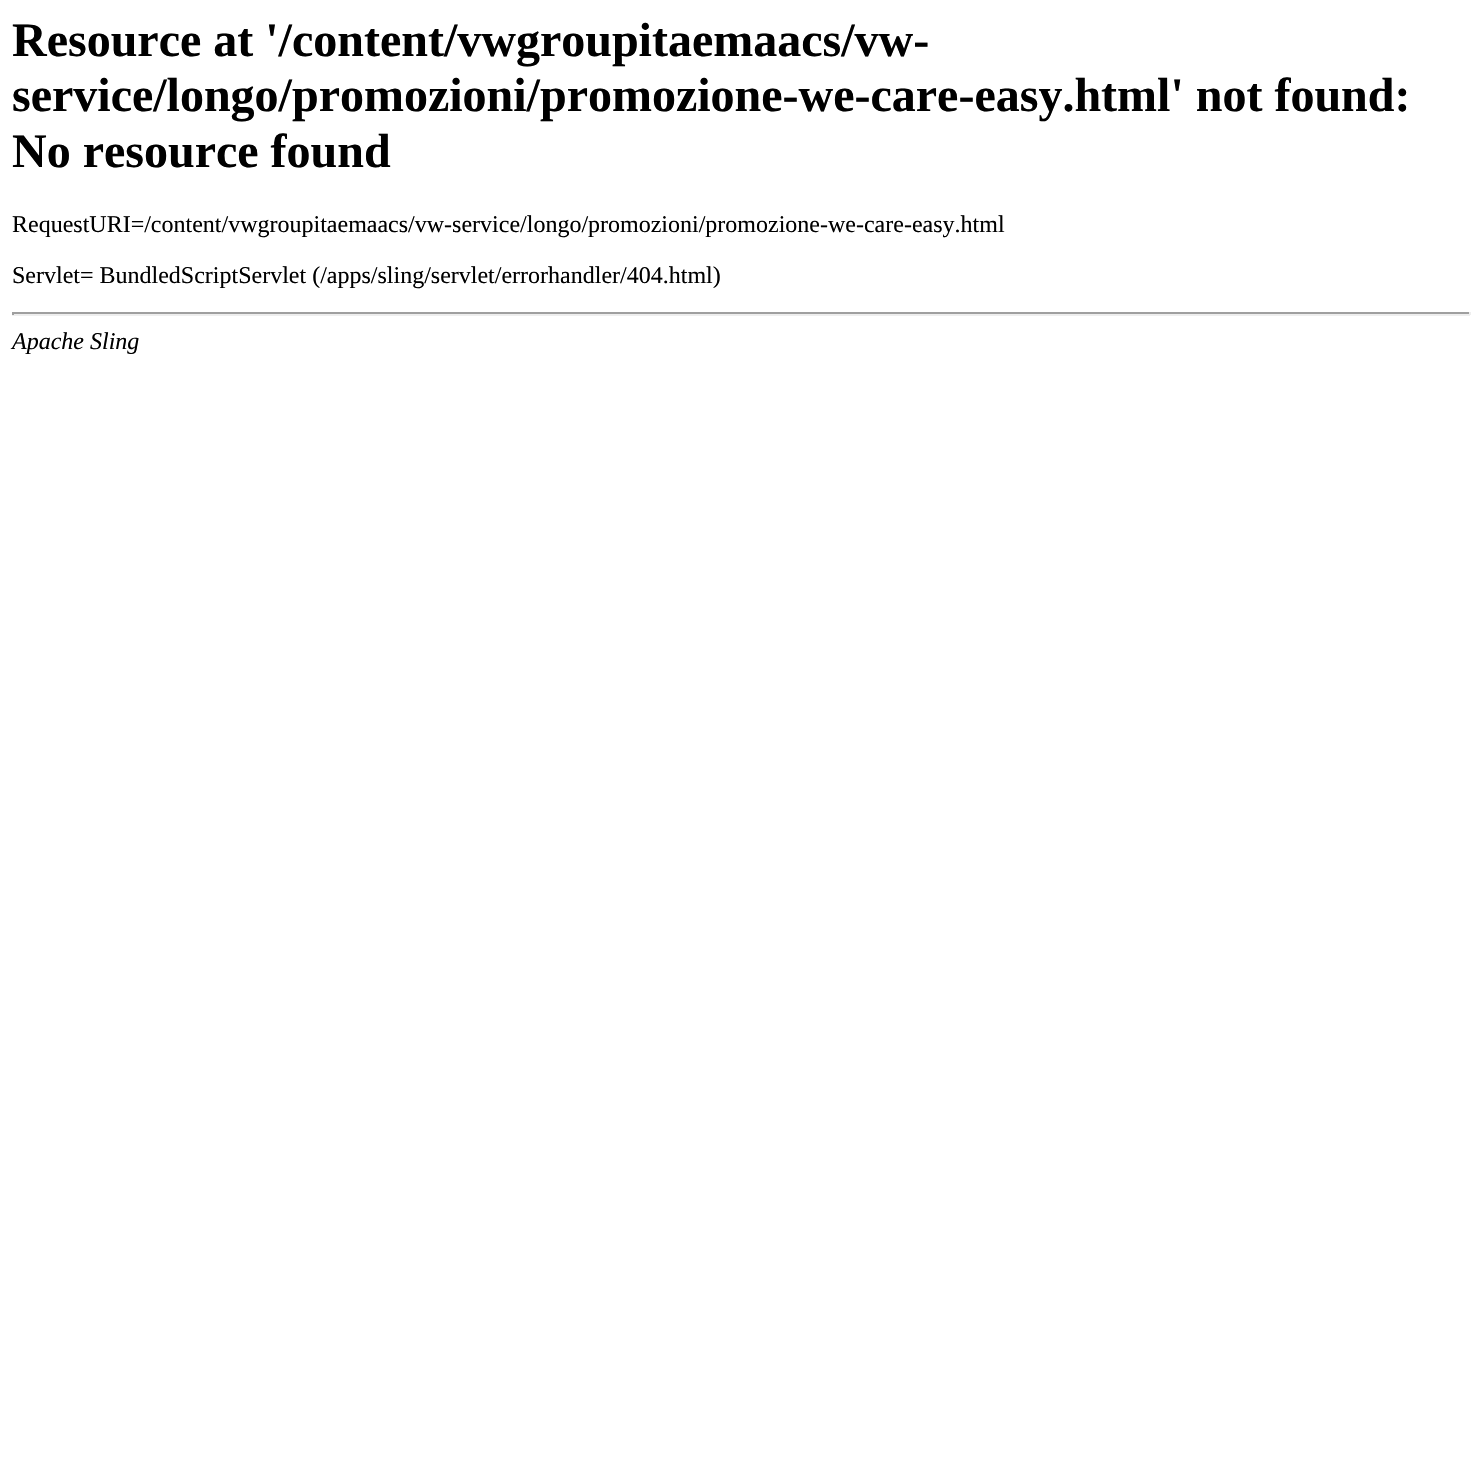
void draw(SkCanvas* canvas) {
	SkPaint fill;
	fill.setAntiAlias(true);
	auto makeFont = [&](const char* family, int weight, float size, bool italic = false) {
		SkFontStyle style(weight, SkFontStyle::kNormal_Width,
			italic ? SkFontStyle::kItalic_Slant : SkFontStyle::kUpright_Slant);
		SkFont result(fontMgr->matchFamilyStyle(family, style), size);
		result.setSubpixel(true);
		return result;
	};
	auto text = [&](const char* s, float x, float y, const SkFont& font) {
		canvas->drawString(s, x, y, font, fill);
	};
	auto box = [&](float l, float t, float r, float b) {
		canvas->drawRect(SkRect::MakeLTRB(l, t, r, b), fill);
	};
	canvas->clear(0xFFFFFFFF);
	fill.setColor(0xFF9F9F9F);
	box(12, 312, 1470, 314);
	fill.setColor(0xFFEEEEEE);
	box(1469, 312, 1471, 315);
	box(12, 314, 1470, 316);
	fill.setColor(0xFF9F9F9F);
	box(12, 312, 14, 315);
	auto font1 = makeFont("Liberation Serif", 700, 48);
	fill.setColor(0xFF000000);
	text("Resource at '/content/vwgroupitaemaacs/vw-", 12, 56, font1);
	text("service/longo/promozioni/promozione-we-care-easy.html' not found:", 12, 111, font1);
	text("No resource found", 12, 167, font1);
	auto font2 = makeFont("Liberation Serif", 400, 24);
	text("RequestURI=/content/vwgroupitaemaacs/vw-service/longo/promozioni/promozione-we-care-easy.html", 12, 232, font2);
	text("Servlet= BundledScriptServlet (/apps/sling/servlet/errorhandler/404.html)", 12, 283, font2);
	auto font3 = makeFont("Liberation Serif", 400, 24, true);
	text("Apache Sling", 12, 349, font3);
}
